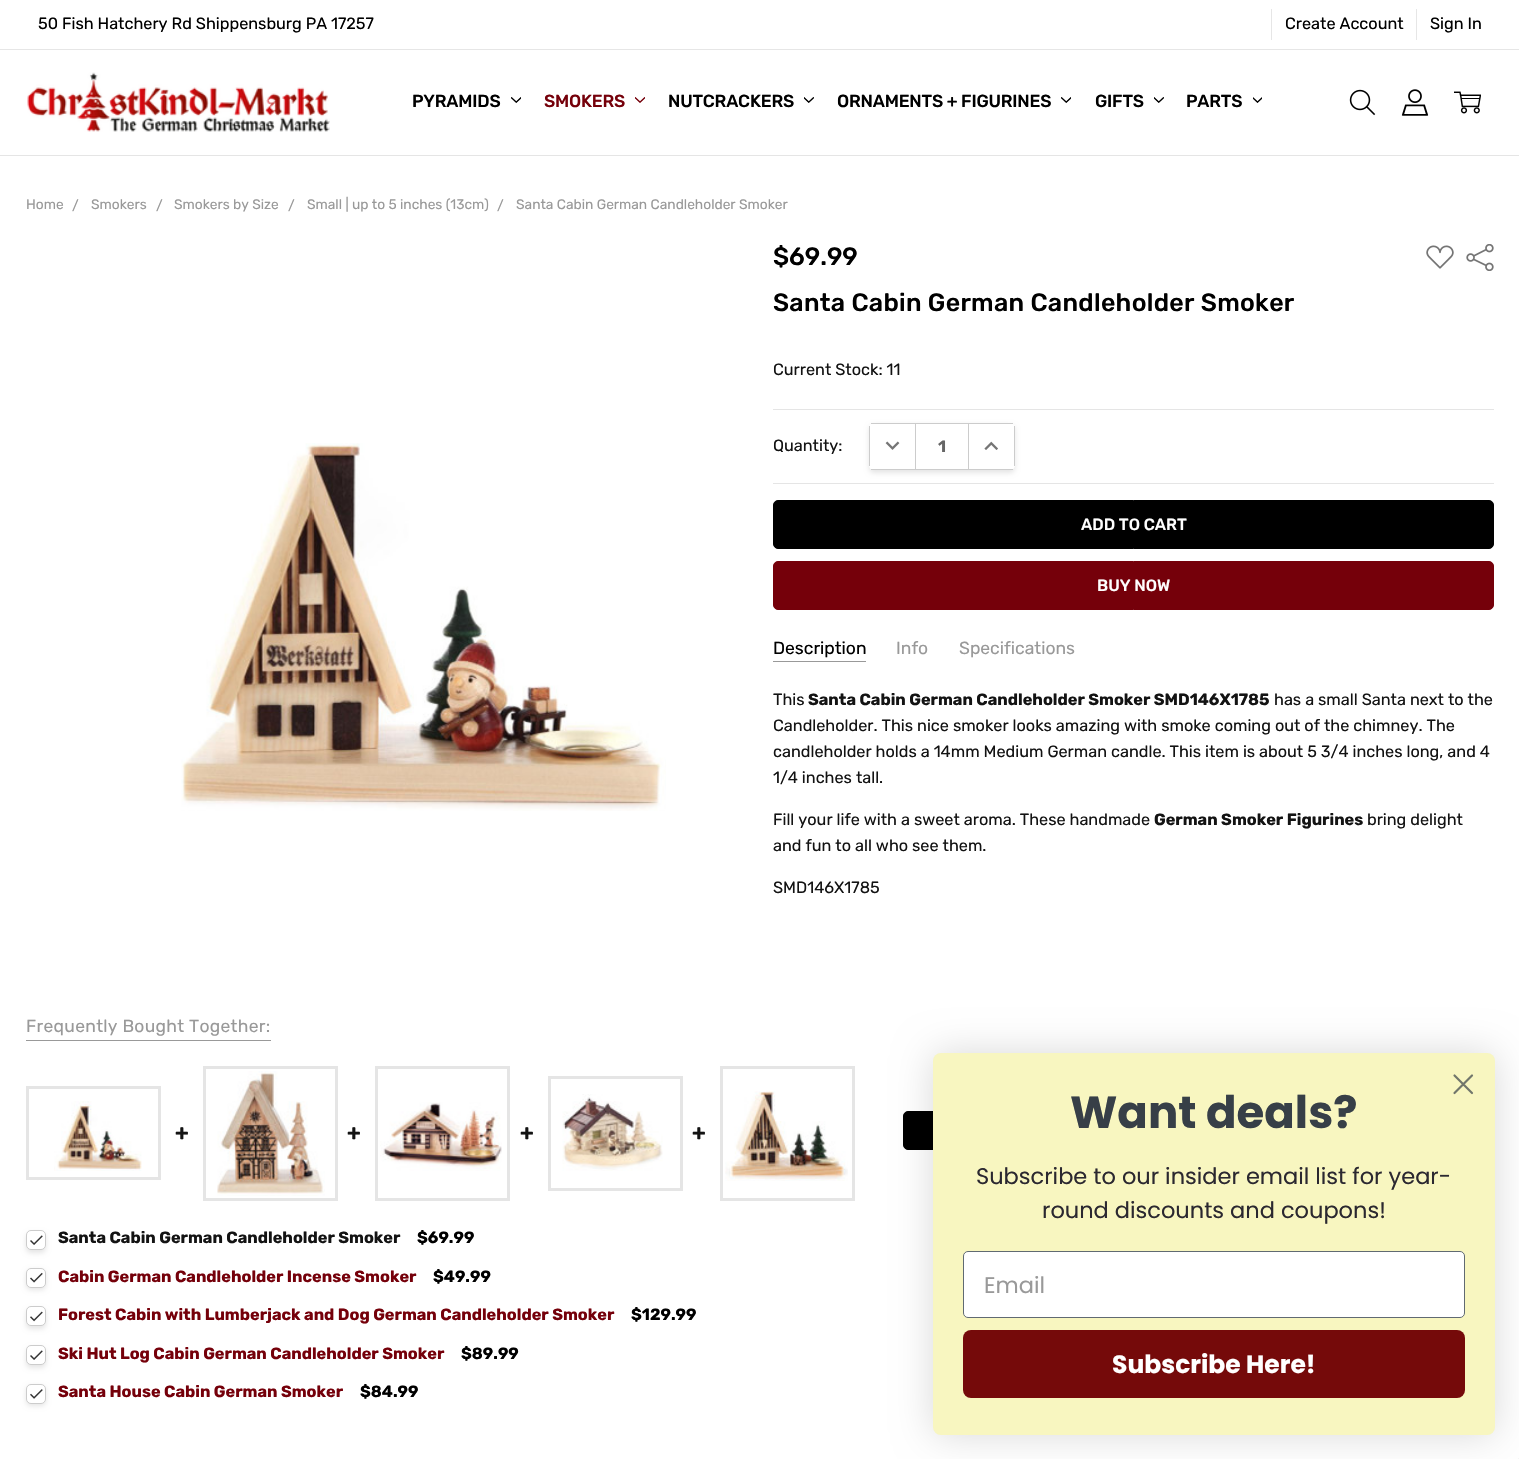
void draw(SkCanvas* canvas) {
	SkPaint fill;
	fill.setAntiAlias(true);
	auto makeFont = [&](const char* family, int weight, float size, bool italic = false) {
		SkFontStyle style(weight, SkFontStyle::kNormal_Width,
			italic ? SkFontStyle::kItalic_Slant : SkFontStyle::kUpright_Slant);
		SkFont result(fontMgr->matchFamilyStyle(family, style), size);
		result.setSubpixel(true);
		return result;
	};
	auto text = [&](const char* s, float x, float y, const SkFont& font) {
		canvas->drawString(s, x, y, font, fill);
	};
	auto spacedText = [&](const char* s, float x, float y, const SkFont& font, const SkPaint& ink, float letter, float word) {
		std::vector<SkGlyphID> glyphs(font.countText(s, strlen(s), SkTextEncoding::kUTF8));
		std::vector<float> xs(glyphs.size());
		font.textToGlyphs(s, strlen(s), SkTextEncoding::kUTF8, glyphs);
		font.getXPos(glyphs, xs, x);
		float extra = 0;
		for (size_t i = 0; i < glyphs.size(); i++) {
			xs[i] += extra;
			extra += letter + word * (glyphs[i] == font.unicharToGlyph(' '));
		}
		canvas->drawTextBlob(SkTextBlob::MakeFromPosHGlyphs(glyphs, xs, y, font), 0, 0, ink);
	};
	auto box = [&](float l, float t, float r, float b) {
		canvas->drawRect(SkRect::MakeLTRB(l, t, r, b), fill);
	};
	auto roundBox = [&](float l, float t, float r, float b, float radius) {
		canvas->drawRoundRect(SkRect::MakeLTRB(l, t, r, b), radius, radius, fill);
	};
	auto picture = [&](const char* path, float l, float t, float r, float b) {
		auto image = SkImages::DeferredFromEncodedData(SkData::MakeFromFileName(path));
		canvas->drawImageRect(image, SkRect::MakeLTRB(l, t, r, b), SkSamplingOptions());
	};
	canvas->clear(0xFFFFFFFF);
	fill.setColor(0xFFE5E5E5);
	box(0, 155, 1519, 156);
	fill.setColor(0xFFE6E6E6);
	box(0, 49, 1519, 50);
	box(1271, 9, 1272, 40);
	box(1416, 9, 1417, 40);
	picture("image0.png", 27, 72, 330, 132);
	picture("image1.png", 511, 97, 521, 103);
	picture("image2.png", 635, 97, 645, 103);
	picture("image3.png", 804, 97, 814, 103);
	picture("image1.png", 1061, 97, 1071, 103);
	picture("image3.png", 1154, 97, 1164, 103);
	picture("image4.png", 1253, 97, 1262, 103);
	picture("image5.png", 1349, 89, 1376, 116);
	picture("image6.png", 1401, 89, 1429, 116);
	picture("image7.png", 1454, 91, 1481, 114);
	picture("image8.png", 1426, 245, 1454, 269);
	picture("image9.png", 1466, 244, 1494, 271);
	picture("image10.png", 181, 443, 666, 811);
	fill.setColor(0xFFE5E5E5);
	box(773, 409, 1494, 410);
	box(773, 483, 1494, 484);
	canvas->save();
	canvas->clipPath(SkPathBuilder(SkPathFillType::kEvenOdd).moveTo(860, 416).lineTo(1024, 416).lineTo(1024, 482).lineTo(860, 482).close().moveTo(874, 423).lineTo(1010, 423).cubicTo(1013, 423, 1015, 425, 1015, 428).lineTo(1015, 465).cubicTo(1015, 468, 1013, 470, 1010, 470).lineTo(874, 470).cubicTo(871, 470, 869, 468, 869, 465).lineTo(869, 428).cubicTo(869, 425, 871, 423, 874, 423).close().detach(), true);
	fill.setColor(0x1A000000);
	fill.setMaskFilter(SkMaskFilter::MakeBlur(kNormal_SkBlurStyle, 2.5f));
	canvas->drawRoundRect(SkRect::MakeLTRB(869, 425, 1015, 473), 5, 5, fill);
	fill.setMaskFilter(nullptr);
	canvas->restore();
	fill.setColor(0xFFCCCCCC);
	box(871, 423, 1013, 424);
	box(871, 469, 1013, 470);
	box(915, 424, 916, 469);
	box(869, 426, 870, 466);
	picture("image11.png", 885, 441, 900, 450);
	fill.setColor(0xFFFFFFFF);
	canvas->drawPath(SkPathBuilder().moveTo(968, 424).lineTo(1003, 424).cubicTo(1014, 424, 1015, 424, 1015, 435).lineTo(1015, 464).cubicTo(1015, 470, 1007, 469, 1003, 469).lineTo(968, 469).close().detach(), fill);
	fill.setColor(0xFFCCCCCC);
	box(1014, 426, 1015, 466);
	box(968, 424, 969, 469);
	picture("image12.png", 984, 441, 998, 450);
	fill.setColor(0xFF000000);
	canvas->drawRoundRect(SkRect::MakeLTRB(773.5f, 500.5f, 1493.5f, 548.5f), 4.5f, 4.5f, fill);
	fill.setStyle(SkPaint::kStroke_Style);
	fill.setStrokeWidth(1);
	canvas->drawRoundRect(SkRect::MakeLTRB(773.5f, 500.5f, 1493.5f, 548.5f), 4.5f, 4.5f, fill);
	fill.setStyle(SkPaint::kFill_Style);
	fill.setColor(0xFF75000A);
	canvas->drawRoundRect(SkRect::MakeLTRB(773.5f, 561.5f, 1493.5f, 609.5f), 4.5f, 4.5f, fill);
	fill.setStyle(SkPaint::kStroke_Style);
	canvas->drawRoundRect(SkRect::MakeLTRB(773.5f, 561.5f, 1493.5f, 609.5f), 4.5f, 4.5f, fill);
	fill.setStyle(SkPaint::kFill_Style);
	fill.setColor(0xFF999999);
	box(773, 661, 866, 662);
	box(26, 1040, 271, 1041);
	fill.setStyle(SkPaint::kStroke_Style);
	fill.setStrokeWidth(3);
	fill.setColor(0xFFE5E5E5);
	canvas->drawRect(SkRect::MakeLTRB(27.5f, 1087.5f, 159.5f, 1178.5f), fill);
	picture("image13.png", 54, 1101, 142, 1171);
	canvas->drawRect(SkRect::MakeLTRB(204.5f, 1067.5f, 336.5f, 1199.5f), fill);
	picture("image14.png", 217, 1071, 325, 1196);
	canvas->drawRect(SkRect::MakeLTRB(376.5f, 1067.5f, 508.5f, 1199.5f), fill);
	picture("image15.png", 380, 1102, 502, 1171);
	canvas->drawRect(SkRect::MakeLTRB(549.5f, 1077.5f, 681.5f, 1189.5f), fill);
	picture("image16.png", 562, 1094, 663, 1171);
	canvas->drawRect(SkRect::MakeLTRB(721.5f, 1067.5f, 853.5f, 1199.5f), fill);
	picture("image17.png", 725, 1091, 848, 1181);
	fill.setStyle(SkPaint::kFill_Style);
	fill.setColor(0xFF000000);
	canvas->drawRoundRect(SkRect::MakeLTRB(903.5f, 1111.5f, 1108.5f, 1149.5f), 4.5f, 4.5f, fill);
	fill.setStyle(SkPaint::kStroke_Style);
	fill.setStrokeWidth(1);
	canvas->drawRoundRect(SkRect::MakeLTRB(903.5f, 1111.5f, 1108.5f, 1149.5f), 4.5f, 4.5f, fill);
	fill.setStyle(SkPaint::kFill_Style);
	fill.setColor(0x1A000000);
	fill.setMaskFilter(SkMaskFilter::MakeBlur(kNormal_SkBlurStyle, 2.5f));
	canvas->drawRoundRect(SkRect::MakeLTRB(26, 1233, 46, 1253), 5, 5, fill);
	fill.setMaskFilter(nullptr);
	fill.setColor(0xFFFFFFFF);
	canvas->drawRoundRect(SkRect::MakeLTRB(26.5f, 1230.5f, 45.5f, 1249.5f), 4.5f, 4.5f, fill);
	fill.setStyle(SkPaint::kStroke_Style);
	fill.setColor(0xFFCCCCCC);
	canvas->drawRoundRect(SkRect::MakeLTRB(26.5f, 1230.5f, 45.5f, 1249.5f), 4.5f, 4.5f, fill);
	picture("image18.png", 30, 1235, 43, 1245);
	fill.setStyle(SkPaint::kFill_Style);
	fill.setColor(0x1A000000);
	fill.setMaskFilter(SkMaskFilter::MakeBlur(kNormal_SkBlurStyle, 2.5f));
	canvas->drawRoundRect(SkRect::MakeLTRB(26, 1270, 46, 1290), 5, 5, fill);
	fill.setMaskFilter(nullptr);
	fill.setColor(0xFFFFFFFF);
	canvas->drawRoundRect(SkRect::MakeLTRB(26.5f, 1268.5f, 45.5f, 1287.5f), 4.5f, 4.5f, fill);
	fill.setStyle(SkPaint::kStroke_Style);
	fill.setColor(0xFFCCCCCC);
	canvas->drawRoundRect(SkRect::MakeLTRB(26.5f, 1268.5f, 45.5f, 1287.5f), 4.5f, 4.5f, fill);
	picture("image19.png", 30, 1272, 43, 1283);
	fill.setStyle(SkPaint::kFill_Style);
	fill.setColor(0x1A000000);
	fill.setMaskFilter(SkMaskFilter::MakeBlur(kNormal_SkBlurStyle, 2.5f));
	canvas->drawRoundRect(SkRect::MakeLTRB(26, 1309, 46, 1329), 5, 5, fill);
	fill.setMaskFilter(nullptr);
	fill.setColor(0xFFFFFFFF);
	canvas->drawRoundRect(SkRect::MakeLTRB(26.5f, 1306.5f, 45.5f, 1325.5f), 4.5f, 4.5f, fill);
	fill.setStyle(SkPaint::kStroke_Style);
	fill.setColor(0xFFCCCCCC);
	canvas->drawRoundRect(SkRect::MakeLTRB(26.5f, 1306.5f, 45.5f, 1325.5f), 4.5f, 4.5f, fill);
	picture("image20.png", 30, 1311, 43, 1322);
	fill.setStyle(SkPaint::kFill_Style);
	fill.setColor(0x1A000000);
	fill.setMaskFilter(SkMaskFilter::MakeBlur(kNormal_SkBlurStyle, 2.5f));
	canvas->drawRoundRect(SkRect::MakeLTRB(26, 1348, 46, 1368), 5, 5, fill);
	fill.setMaskFilter(nullptr);
	fill.setColor(0xFFFFFFFF);
	canvas->drawRoundRect(SkRect::MakeLTRB(26.5f, 1345.5f, 45.5f, 1364.5f), 4.5f, 4.5f, fill);
	fill.setStyle(SkPaint::kStroke_Style);
	fill.setColor(0xFFCCCCCC);
	canvas->drawRoundRect(SkRect::MakeLTRB(26.5f, 1345.5f, 45.5f, 1364.5f), 4.5f, 4.5f, fill);
	picture("image18.png", 30, 1350, 43, 1360);
	fill.setStyle(SkPaint::kFill_Style);
	fill.setColor(0x1A000000);
	fill.setMaskFilter(SkMaskFilter::MakeBlur(kNormal_SkBlurStyle, 2.5f));
	canvas->drawRoundRect(SkRect::MakeLTRB(26, 1386, 46, 1406), 5, 5, fill);
	fill.setMaskFilter(nullptr);
	fill.setColor(0xFFFFFFFF);
	canvas->drawRoundRect(SkRect::MakeLTRB(26.5f, 1384.5f, 45.5f, 1403.5f), 4.5f, 4.5f, fill);
	fill.setStyle(SkPaint::kStroke_Style);
	fill.setColor(0xFFCCCCCC);
	canvas->drawRoundRect(SkRect::MakeLTRB(26.5f, 1384.5f, 45.5f, 1403.5f), 4.5f, 4.5f, fill);
	picture("image21.png", 30, 1389, 43, 1399);
	fill.setStyle(SkPaint::kFill_Style);
	fill.setColor(0x26000000);
	fill.setMaskFilter(SkMaskFilter::MakeBlur(kNormal_SkBlurStyle, 19));
	canvas->drawRoundRect(SkRect::MakeLTRB(933, 1053, 1495, 1435), 8, 8, fill);
	fill.setMaskFilter(nullptr);
	fill.setColor(0xFFF8F6C0);
	roundBox(933, 1053, 1495, 1435, 8);
	fill.setStyle(SkPaint::kStroke_Style);
	fill.setStrokeWidth(2.2f);
	fill.setStrokeCap(SkPaint::kRound_Cap);
	fill.setStrokeJoin(SkPaint::kRound_Join);
	fill.setColor(0xFF71766B);
	canvas->drawPath(SkPathBuilder().moveTo(1454.5f, 1075.5f).lineTo(1472, 1093).moveTo(1454.5f, 1093).lineTo(1472, 1075.5f).close().detach(), fill);
	fill.setStyle(SkPaint::kFill_Style);
	fill.setColor(0xFFFFFFFF);
	canvas->drawRoundRect(SkRect::MakeLTRB(963.5f, 1251.5f, 1464.5f, 1317.5f), 4.5f, 4.5f, fill);
	fill.setStyle(SkPaint::kStroke_Style);
	fill.setStrokeWidth(1);
	fill.setStrokeCap(SkPaint::kButt_Cap);
	fill.setStrokeJoin(SkPaint::kMiter_Join);
	fill.setColor(0xFF606A72);
	canvas->drawRoundRect(SkRect::MakeLTRB(963.5f, 1251.5f, 1464.5f, 1317.5f), 4.5f, 4.5f, fill);
	fill.setStyle(SkPaint::kFill_Style);
	fill.setColor(0xFF750A0A);
	roundBox(963, 1330, 1465, 1398, 8);
	fill.setColor(0xFFF5F5F5);
	box(1518, 1458, 1519, 1459);
	auto font1 = makeFont("Rubik", 400, 16.25f);
	fill.setColor(0xFF000000);
	text("50 Fish Hatchery Rd Shippensburg PA 17257", 38, 29, font1);
	text("Create Account", 1285, 29, font1);
	text("Sign In", 1430, 29, font1);
	auto font2 = makeFont("Rubik", 500, 17.5f);
	spacedText("PYRAMIDS", 412, 107, font2, fill, -0.2f, 0);
	fill.setColor(0xFF75000A);
	spacedText("SMOKERS", 544, 107, font2, fill, -0.2f, 0);
	fill.setColor(0xFF000000);
	spacedText("NUTCRACKERS", 668, 107, font2, fill, -0.2f, 0);
	spacedText("ORNAMENTS + FIGURINES", 837, 107, font2, fill, -0.2f, 0);
	spacedText("GIFTS", 1095, 107, font2, fill, -0.2f, 0);
	spacedText("PARTS", 1186, 107, font2, fill, -0.2f, 0);
	auto font3 = makeFont("Rubik", 400, 13.75f);
	fill.setColor(0xFF999999);
	text("Home", 26, 209, font3);
	text("/", 72, 210, font3);
	text("Smokers", 91, 209, font3);
	text("/", 156, 210, font3);
	text("Smokers by Size", 174, 209, font3);
	text("/", 288, 210, font3);
	text("Small | up to 5 inches (13cm)", 307, 209, font3);
	text("/", 497, 210, font3);
	text("Santa Cabin German Candleholder Smoker", 516, 209, font3);
	auto font4 = makeFont("Rubik", 500, 25);
	fill.setColor(0xFF000000);
	text("$69.99", 773, 265, font4);
	spacedText("Santa Cabin German Candleholder Smoker", 773, 311, font4, fill, 0.3f, 0);
	fill.setColor(0xFF131313);
	text("Current Stock: 11", 773, 375, font1);
	text("Quantity:", 773, 451, font1);
	auto font5 = makeFont("Rubik", 700, 16.25f);
	fill.setColor(0xFF666666);
	text("1", 938, 452, font5);
	auto font6 = makeFont("Rubik", 500, 16.25f);
	fill.setColor(0xFFFFFFFF);
	text("ADD TO CART", 1081, 530, font6);
	text("BUY NOW", 1097, 591, font6);
	auto font7 = makeFont("Rubik", 400, 17.5f);
	fill.setColor(0xFF000000);
	text("Description", 773, 654, font7);
	fill.setColor(0xFF999999);
	text("Info", 896, 654, font7);
	text("Specifications", 959, 654, font7);
	fill.setColor(0xFF131313);
	text("This", 773, 705, font1);
	text("Santa Cabin German Candleholder Smoker SMD146X1785", 808, 705, font5);
	text("has a small Santa next to the", 1274, 705, font1);
	text("Candleholder. This nice smoker looks amazing with smoke coming out of the chimney. The", 773, 731, font1);
	text("candleholder holds a 14mm Medium German candle. This item is about 5 3/4 inches long, and 4", 773, 757, font1);
	text("1/4 inches tall.", 773, 783, font1);
	text("Fill your life with a sweet aroma. These handmade", 773, 825, font1);
	text("German Smoker Figurines", 1154, 825, font5);
	text("bring delight", 1367, 825, font1);
	text("and fun to all who see them.", 773, 851, font1);
	text("SMD146X1785", 773, 893, font1);
	fill.setColor(0xFF999999);
	spacedText("Frequently Bought Together:", 26, 1032, font7, fill, 0.3f, 0);
	auto font8 = makeFont("Rubik", 700, 22.5f);
	fill.setColor(0xFF131313);
	text("+", 175, 1140, font8);
	text("+", 347, 1140, font8);
	text("+", 520, 1140, font8);
	text("+", 692, 1140, font8);
	text("Santa Cabin German Candleholder Smoker", 58, 1243, font5);
	fill.setColor(0xFF000000);
	text("$69.99", 417, 1243, font5);
	fill.setColor(0xFF75000A);
	text("Cabin German Candleholder Incense Smoker", 58, 1282, font5);
	fill.setColor(0xFF000000);
	text("$49.99", 433, 1282, font5);
	fill.setColor(0xFF75000A);
	text("Forest Cabin with Lumberjack and Dog German Candleholder Smoker", 58, 1320, font5);
	fill.setColor(0xFF000000);
	text("$129.99", 631, 1320, font5);
	fill.setColor(0xFF75000A);
	text("Ski Hut Log Cabin German Candleholder Smoker", 58, 1359, font5);
	fill.setColor(0xFF000000);
	text("$89.99", 461, 1359, font5);
	fill.setColor(0xFF75000A);
	text("Santa House Cabin German Smoker", 58, 1397, font5);
	fill.setColor(0xFF000000);
	text("$84.99", 360, 1397, font5);
	auto font9 = makeFont("Poppins", 700, 45);
	fill.setColor(0xFF373F47);
	text("Want deals?", 1070, 1128, font9);
	auto font10 = makeFont("Poppins", 400, 22.5f);
	fill.setColor(0xFF2B2830);
	text("Subscribe to our insider email list for year-", 976, 1184, font10);
	text("round discounts and coupons!", 1042, 1218, font10);
	fill.setColor(0xFF999999);
	text("Email", 984, 1293, font10);
	auto font11 = makeFont("Poppins", 700, 25);
	fill.setColor(0xFFFFFFFF);
	text("Subscribe Here!", 1112, 1373, font11);
}
